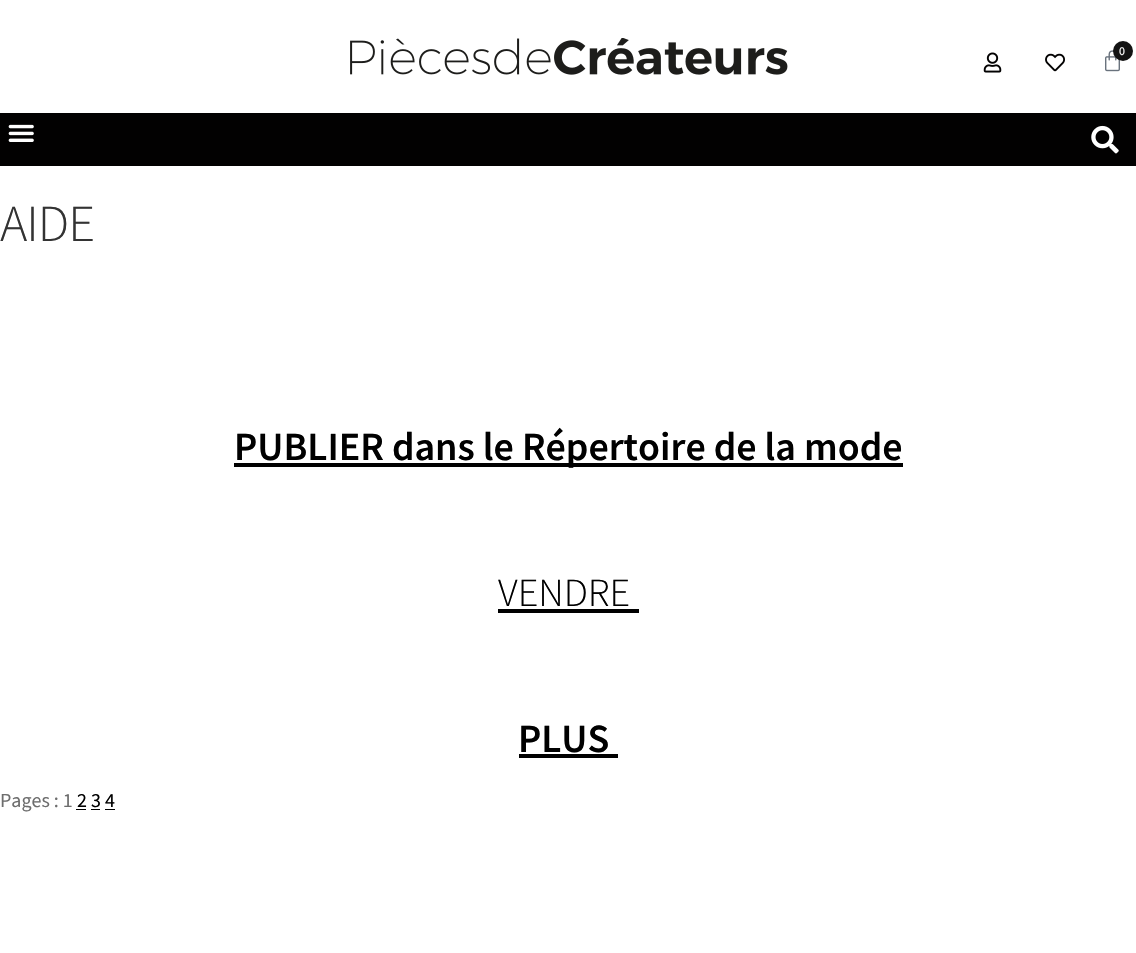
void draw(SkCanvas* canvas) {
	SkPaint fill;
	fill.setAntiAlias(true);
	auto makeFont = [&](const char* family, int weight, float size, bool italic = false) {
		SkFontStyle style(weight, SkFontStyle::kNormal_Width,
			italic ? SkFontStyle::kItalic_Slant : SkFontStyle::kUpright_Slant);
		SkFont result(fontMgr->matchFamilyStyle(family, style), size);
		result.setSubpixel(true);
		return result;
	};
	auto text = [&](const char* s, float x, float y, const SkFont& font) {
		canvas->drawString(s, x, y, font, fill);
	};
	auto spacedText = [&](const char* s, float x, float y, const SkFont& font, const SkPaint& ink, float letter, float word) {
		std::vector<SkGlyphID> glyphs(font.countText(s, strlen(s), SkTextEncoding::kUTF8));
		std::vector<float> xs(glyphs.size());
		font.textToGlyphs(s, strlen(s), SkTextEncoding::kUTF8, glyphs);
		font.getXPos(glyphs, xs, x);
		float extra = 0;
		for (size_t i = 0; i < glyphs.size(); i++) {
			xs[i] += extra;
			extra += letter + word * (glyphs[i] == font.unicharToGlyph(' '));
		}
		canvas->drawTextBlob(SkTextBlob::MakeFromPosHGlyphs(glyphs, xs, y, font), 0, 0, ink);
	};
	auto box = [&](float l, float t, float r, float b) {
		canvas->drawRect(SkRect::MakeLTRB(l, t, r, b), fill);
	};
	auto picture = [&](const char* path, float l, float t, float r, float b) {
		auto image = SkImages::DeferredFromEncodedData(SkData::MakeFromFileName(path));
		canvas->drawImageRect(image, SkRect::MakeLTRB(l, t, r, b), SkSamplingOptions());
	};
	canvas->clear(0xFFFFFFFF);
	picture("image0.png", 350, 38, 788, 75);
	picture("image1.png", 1105, 50, 1120, 72);
	fill.setColor(0xFF131313);
	canvas->drawCircle(1123, 51, 10, fill);
	picture("image2.png", 983, 52, 1002, 73);
	picture("image3.png", 1045, 53, 1065, 72);
	fill.setColor(0xFF020101);
	box(0, 113, 1136, 166);
	picture("image4.png", 8, 124, 34, 142);
	picture("image5.png", 1091, 125, 1119, 154);
	fill.setColor(0xFF000000);
	box(234, 463, 903, 467);
	box(498, 609, 639, 613);
	box(519, 754, 618, 758);
	box(76, 809, 86, 810);
	box(91, 809, 100, 810);
	box(105, 809, 115, 810);
	auto font1 = makeFont("Source Sans Pro", 400, 12);
	fill.setColor(0xFFFFFFFF);
	text("0", 1119, 55, font1);
	auto font2 = makeFont("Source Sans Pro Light", 300, 52);
	fill.setColor(0xFF333333);
	spacedText("AIDE", 0, 241, font2, fill, -1, 0);
	auto font3 = makeFont("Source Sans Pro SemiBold", 600, 40);
	fill.setColor(0xFF000000);
	text("PUBLIER dans le Répertoire de la mode", 234, 460, font3);
	auto font4 = makeFont("Source Sans Pro Light", 300, 40);
	text("VENDRE", 498, 606, font4);
	text("PLUS", 518, 752, font3);
	auto font5 = makeFont("Source Sans Pro", 400, 20);
	fill.setColor(0xFF6D6D6D);
	text("Pages : 1", 0, 807, font5);
	fill.setColor(0xFF000000);
	text("2 3 4", 77, 807, font5);
}
